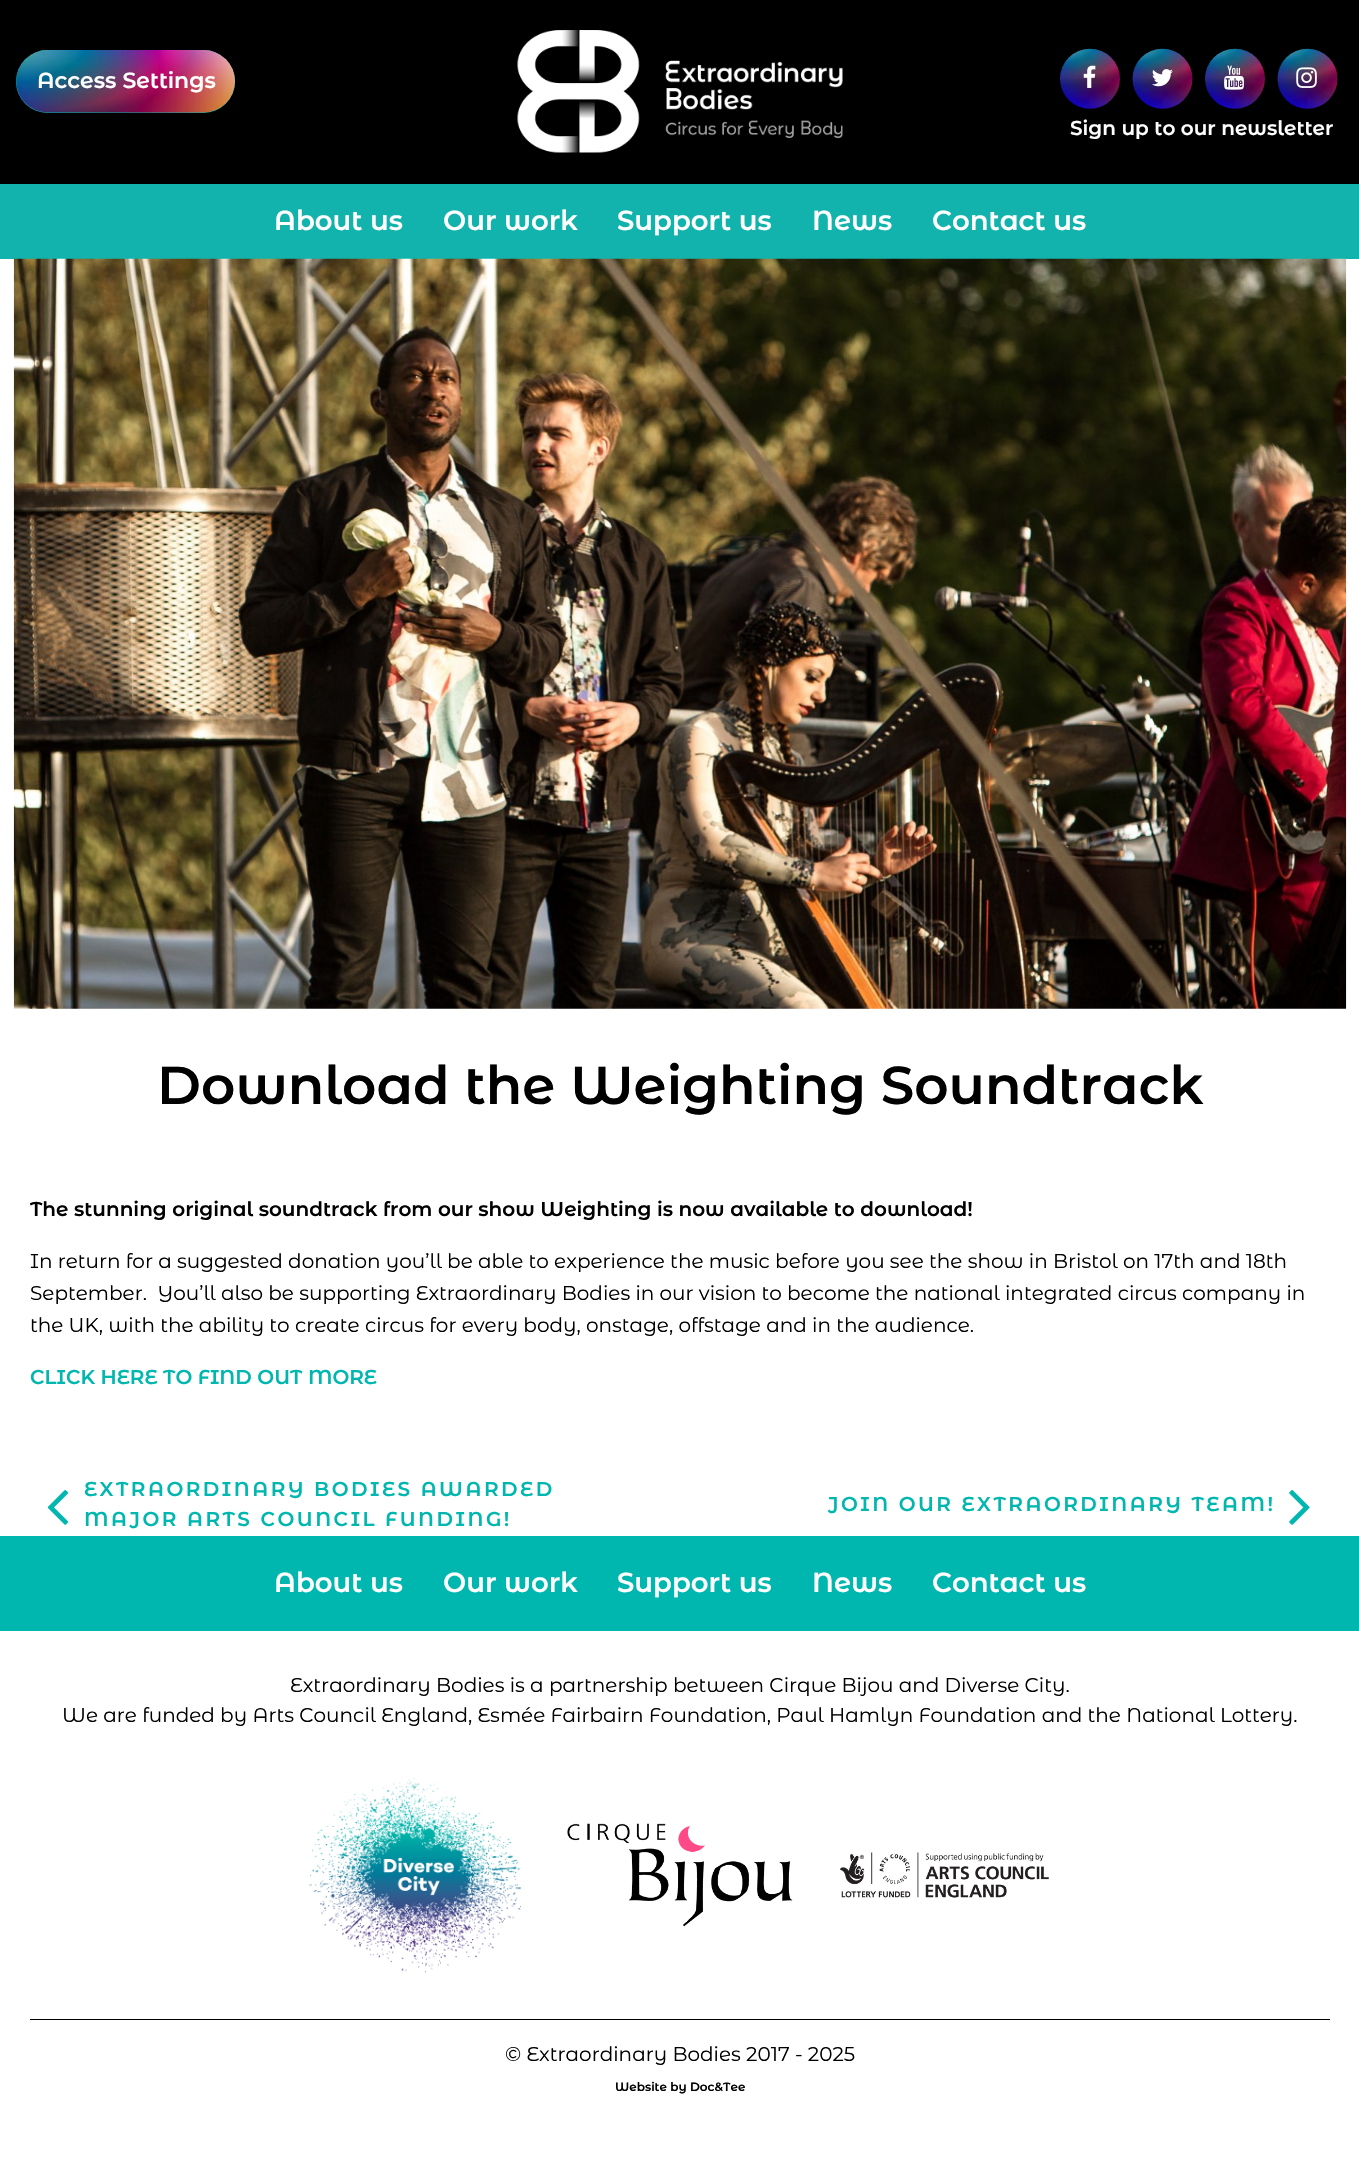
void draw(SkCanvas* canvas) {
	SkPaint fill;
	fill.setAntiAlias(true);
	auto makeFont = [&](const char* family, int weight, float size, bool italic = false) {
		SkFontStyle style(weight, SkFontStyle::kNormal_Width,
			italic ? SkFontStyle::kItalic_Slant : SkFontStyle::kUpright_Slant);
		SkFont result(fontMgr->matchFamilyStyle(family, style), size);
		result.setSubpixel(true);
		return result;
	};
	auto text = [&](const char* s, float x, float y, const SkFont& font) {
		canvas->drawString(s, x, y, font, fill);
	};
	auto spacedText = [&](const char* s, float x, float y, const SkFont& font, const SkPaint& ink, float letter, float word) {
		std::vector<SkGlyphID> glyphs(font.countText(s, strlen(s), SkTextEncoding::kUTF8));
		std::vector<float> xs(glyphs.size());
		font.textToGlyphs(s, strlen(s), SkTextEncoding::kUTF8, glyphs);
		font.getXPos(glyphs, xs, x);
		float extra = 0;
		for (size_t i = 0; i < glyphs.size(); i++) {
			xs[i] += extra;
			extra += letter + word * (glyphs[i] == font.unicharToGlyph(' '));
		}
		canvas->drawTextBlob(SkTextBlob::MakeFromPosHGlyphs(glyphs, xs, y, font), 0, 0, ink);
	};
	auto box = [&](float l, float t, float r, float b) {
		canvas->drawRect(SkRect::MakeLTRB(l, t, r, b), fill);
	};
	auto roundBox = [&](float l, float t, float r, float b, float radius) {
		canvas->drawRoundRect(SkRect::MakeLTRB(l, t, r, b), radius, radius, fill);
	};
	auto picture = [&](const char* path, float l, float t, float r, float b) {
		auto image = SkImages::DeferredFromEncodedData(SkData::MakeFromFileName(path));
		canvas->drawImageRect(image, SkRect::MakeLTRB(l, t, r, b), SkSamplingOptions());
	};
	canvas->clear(0xFFFFFFFF);
	fill.setColor(0xFF000000);
	box(0, 0, 1359, 184);
	fill.setColor(0xFF00B7AF);
	roundBox(16, 50, 235, 113, 31.5f);
	picture("image0.png", 16, 50, 236, 113);
	picture("image1.png", 517, 30, 843, 153);
	picture("image2.png", 1060, 48, 1120, 109);
	picture("image3.png", 1083, 65, 1096, 88);
	picture("image4.png", 1132, 48, 1193, 109);
	picture("image5.png", 1152, 69, 1173, 87);
	picture("image6.png", 1205, 48, 1265, 109);
	picture("image7.png", 1224, 65, 1244, 90);
	picture("image8.png", 1277, 48, 1338, 109);
	picture("image9.png", 1296, 67, 1317, 88);
	fill.setColor(0xFF12B3AC);
	box(0, 184, 1359, 259);
	picture("image10.png", 13, 258, 1347, 1009);
	picture("image11.png", 47, 1490, 69, 1525);
	picture("image12.png", 1289, 1490, 1310, 1525);
	fill.setColor(0xFF00B7AF);
	box(0, 1536, 1359, 1631);
	picture("image13.png", 309, 1777, 521, 1973);
	picture("image14.png", 567, 1823, 793, 1927);
	picture("image15.png", 840, 1852, 1049, 1898);
	fill.setColor(0xFF000000);
	box(30, 2019, 1330, 2020);
	auto font1 = makeFont("Montserrat Alternates", 600, 22);
	fill.setColor(0xFFFFFFFF);
	text("Access Settings", 37, 88, font1);
	auto font2 = makeFont("Montserrat Alternates", 600, 20);
	text("Sign up to our newsletter", 1070, 135, font2);
	auto font3 = makeFont("Montserrat Alternates", 600, 27.5f);
	text("About us", 274, 230, font3);
	text("Our work", 443, 230, font3);
	text("Support us", 617, 230, font3);
	text("News", 812, 230, font3);
	text("Contact us", 932, 230, font3);
	auto font4 = makeFont("Montserrat Alternates", 600, 53.3f);
	fill.setColor(0xFF000000);
	text("Download the Weighting Soundtrack", 157, 1104, font4);
	text("The stunning original soundtrack from our show Weighting is now available to download!", 30, 1216, font2);
	auto font5 = makeFont("Montserrat Alternates", 400, 20);
	text("In return for a suggested donation you’ll be able to experience the music before you see the show in Bristol on 17th and 18th", 30, 1268, font5);
	text("September.  You’ll also be supporting Extraordinary Bodies in our vision to become the national integrated circus company in", 30, 1300, font5);
	text("the UK, with the ability to create circus for every body, onstage, offstage and in the audience.", 30, 1332, font5);
	fill.setColor(0xFF00B7AF);
	text("CLICK HERE TO FIND OUT MORE", 30, 1384, font2);
	spacedText("EXTRAORDINARY BODIES AWARDED", 84, 1496, font2, fill, 2.5f, 0);
	spacedText("MAJOR ARTS COUNCIL FUNDING!", 84, 1526, font2, fill, 2.5f, 0);
	spacedText("JOIN OUR EXTRAORDINARY TEAM!", 828, 1511, font2, fill, 2.5f, 0);
	fill.setColor(0xFFFFFFFF);
	text("About us", 274, 1592, font3);
	text("Our work", 443, 1592, font3);
	text("Support us", 617, 1592, font3);
	text("News", 812, 1592, font3);
	text("Contact us", 932, 1592, font3);
	fill.setColor(0xFF000000);
	text("Extraordinary Bodies is a partnership between Cirque Bijou and Diverse City.", 290, 1692, font5);
	text("We are funded by Arts Council England, Esmée Fairbairn Foundation, Paul Hamlyn Foundation and the National Lottery.", 62, 1722, font5);
	text("© Extraordinary Bodies 2017 - 2025", 505, 2061, font5);
	auto font6 = makeFont("Montserrat Alternates", 600, 12);
	text("Website by Doc&Tee", 615, 2091, font6);
}
